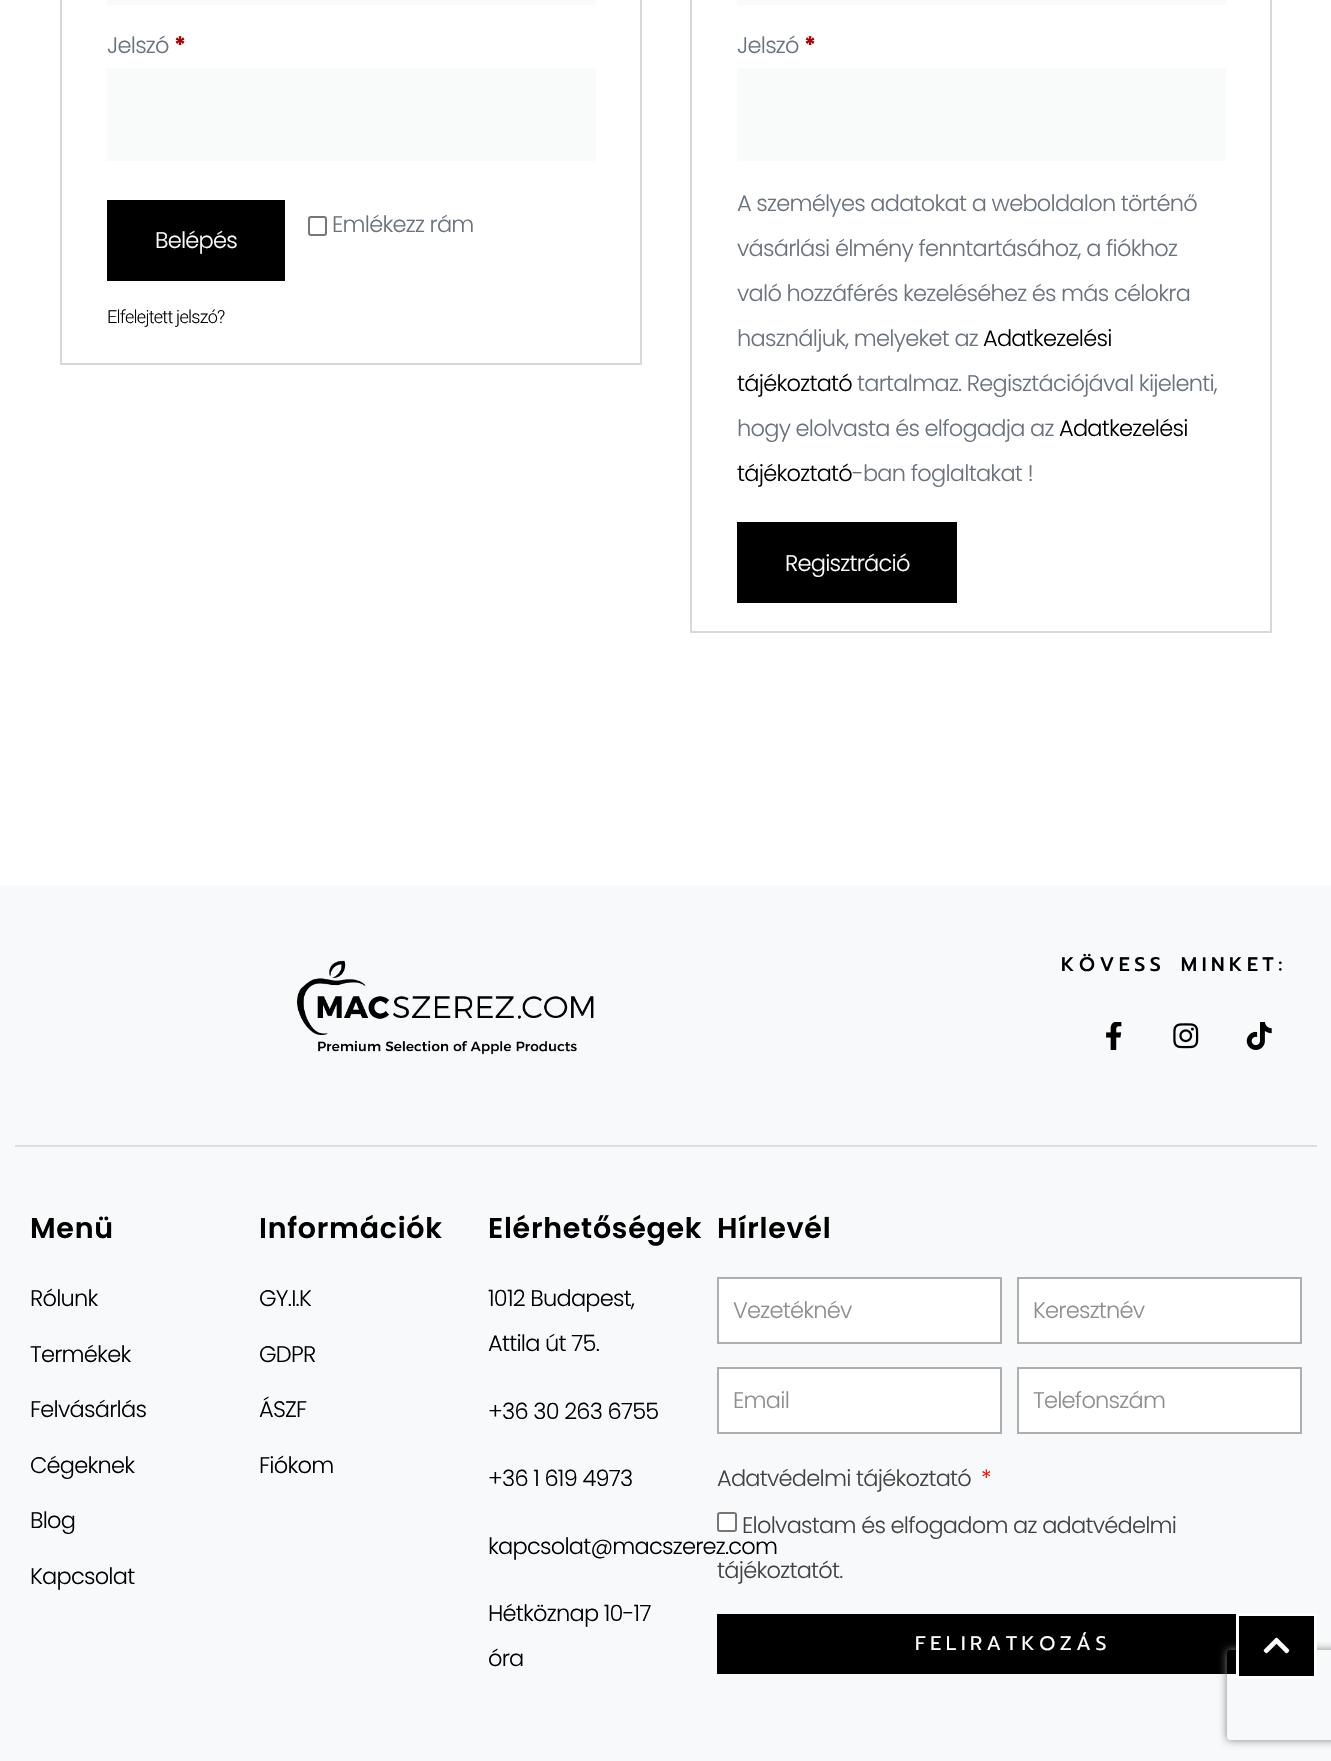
void draw(SkCanvas* canvas) {
	SkPaint fill;
	fill.setAntiAlias(true);
	auto makeFont = [&](const char* family, int weight, float size, bool italic = false) {
		SkFontStyle style(weight, SkFontStyle::kNormal_Width,
			italic ? SkFontStyle::kItalic_Slant : SkFontStyle::kUpright_Slant);
		SkFont result(fontMgr->matchFamilyStyle(family, style), size);
		result.setSubpixel(true);
		return result;
	};
	auto spacedText = [&](const char* s, float x, float y, const SkFont& font, const SkPaint& ink, float letter, float word) {
		std::vector<SkGlyphID> glyphs(font.countText(s, strlen(s), SkTextEncoding::kUTF8));
		std::vector<float> xs(glyphs.size());
		font.textToGlyphs(s, strlen(s), SkTextEncoding::kUTF8, glyphs);
		font.getXPos(glyphs, xs, x);
		float extra = 0;
		for (size_t i = 0; i < glyphs.size(); i++) {
			xs[i] += extra;
			extra += letter + word * (glyphs[i] == font.unicharToGlyph(' '));
		}
		canvas->drawTextBlob(SkTextBlob::MakeFromPosHGlyphs(glyphs, xs, y, font), 0, 0, ink);
	};
	auto box = [&](float l, float t, float r, float b) {
		canvas->drawRect(SkRect::MakeLTRB(l, t, r, b), fill);
	};
	auto picture = [&](const char* path, float l, float t, float r, float b) {
		auto image = SkImages::DeferredFromEncodedData(SkData::MakeFromFileName(path));
		canvas->drawImageRect(image, SkRect::MakeLTRB(l, t, r, b), SkSamplingOptions());
	};
	canvas->clear(0xFFFFFFFF);
	fill.setStyle(SkPaint::kStroke_Style);
	fill.setStrokeWidth(2);
	fill.setColor(0xFFD5D8DC);
	canvas->drawRect(SkRect::MakeLTRB(61, -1, 641, 364), fill);
	fill.setStyle(SkPaint::kFill_Style);
	fill.setColor(0xFFF9FAFA);
	box(107, 0, 596, 5);
	box(107, 68, 596, 161);
	fill.setStyle(SkPaint::kStroke_Style);
	fill.setColor(0xFF767676);
	canvas->drawRoundRect(SkRect::MakeLTRB(309, 217, 326, 235), 2, 2, fill);
	fill.setStyle(SkPaint::kFill_Style);
	fill.setColor(0xFF000000);
	box(107, 200, 285, 281);
	fill.setStyle(SkPaint::kStroke_Style);
	fill.setColor(0xFFD5D8DC);
	canvas->drawRect(SkRect::MakeLTRB(691, -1, 1271, 632), fill);
	fill.setStyle(SkPaint::kFill_Style);
	fill.setColor(0xFFF9FAFA);
	box(737, 0, 1226, 5);
	box(737, 68, 1226, 161);
	fill.setColor(0xFF000000);
	box(737, 522, 957, 603);
	fill.setColor(0xFFF8F9FA);
	box(0, 885, 1331, 1761);
	picture("image0.png", 297, 960, 594, 1055);
	picture("image1.png", 1106, 1022, 1122, 1050);
	picture("image2.png", 1173, 1023, 1199, 1049);
	picture("image3.png", 1246, 1022, 1272, 1050);
	fill.setColor(0xFFDDDEDE);
	box(15, 1145, 1317, 1147);
	fill.setColor(0xFFFFFFFF);
	canvas->drawRect(SkRect::MakeLTRB(718, 1278, 1001, 1343), fill);
	fill.setStyle(SkPaint::kStroke_Style);
	fill.setColor(0xFFAEAEAE);
	canvas->drawRect(SkRect::MakeLTRB(718, 1278, 1001, 1343), fill);
	fill.setStyle(SkPaint::kFill_Style);
	fill.setColor(0xFFFFFFFF);
	canvas->drawRect(SkRect::MakeLTRB(1018, 1278, 1301, 1343), fill);
	fill.setStyle(SkPaint::kStroke_Style);
	fill.setColor(0xFFAEAEAE);
	canvas->drawRect(SkRect::MakeLTRB(1018, 1278, 1301, 1343), fill);
	fill.setStyle(SkPaint::kFill_Style);
	fill.setColor(0xFFFFFFFF);
	canvas->drawRect(SkRect::MakeLTRB(718, 1368, 1001, 1433), fill);
	fill.setStyle(SkPaint::kStroke_Style);
	fill.setColor(0xFFAEAEAE);
	canvas->drawRect(SkRect::MakeLTRB(718, 1368, 1001, 1433), fill);
	fill.setStyle(SkPaint::kFill_Style);
	fill.setColor(0xFFFFFFFF);
	canvas->drawRect(SkRect::MakeLTRB(1018, 1368, 1301, 1433), fill);
	fill.setStyle(SkPaint::kStroke_Style);
	fill.setColor(0xFFAEAEAE);
	canvas->drawRect(SkRect::MakeLTRB(1018, 1368, 1301, 1433), fill);
	fill.setStyle(SkPaint::kFill_Style);
	fill.setColor(0xFFFFFFFF);
	canvas->drawRoundRect(SkRect::MakeLTRB(718, 1513, 736, 1531), 2, 2, fill);
	fill.setStyle(SkPaint::kStroke_Style);
	fill.setColor(0xFF767676);
	canvas->drawRoundRect(SkRect::MakeLTRB(718, 1513, 736, 1531), 2, 2, fill);
	fill.setStyle(SkPaint::kFill_Style);
	fill.setColor(0xFF000000);
	box(717, 1614, 1236, 1674);
	canvas->save();
	canvas->clipPath(SkPathBuilder(SkPathFillType::kEvenOdd).moveTo(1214, 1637).lineTo(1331, 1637).lineTo(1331, 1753).lineTo(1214, 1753).close().moveTo(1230, 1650).lineTo(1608, 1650).cubicTo(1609.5f, 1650, 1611, 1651.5f, 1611, 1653).lineTo(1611, 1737).cubicTo(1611, 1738.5f, 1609.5f, 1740, 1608, 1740).lineTo(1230, 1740).cubicTo(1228.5f, 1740, 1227, 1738.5f, 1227, 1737).lineTo(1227, 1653).cubicTo(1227, 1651.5f, 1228.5f, 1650, 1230, 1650).close().detach(), true);
	fill.setColor(0xFF808080);
	fill.setMaskFilter(SkMaskFilter::MakeBlur(kNormal_SkBlurStyle, 4));
	canvas->drawRoundRect(SkRect::MakeLTRB(1227, 1650, 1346, 1740), 3, 3, fill);
	fill.setMaskFilter(nullptr);
	canvas->restore();
	fill.setColor(0xFF000000);
	canvas->drawRect(SkRect::MakeLTRB(1237.5f, 1614.5f, 1315.5f, 1677.5f), fill);
	fill.setStyle(SkPaint::kStroke_Style);
	fill.setStrokeWidth(3);
	fill.setColor(0xFFFFFFFF);
	canvas->drawRect(SkRect::MakeLTRB(1237.5f, 1614.5f, 1315.5f, 1677.5f), fill);
	picture("image4.png", 1263, 1637, 1290, 1654);
	auto font1 = makeFont("Poppins", 300, 22.5f);
	fill.setStyle(SkPaint::kFill_Style);
	fill.setColor(0xFF69727D);
	spacedText("Jelszó", 107, 53, font1, fill, -0.75f, 0);
	auto font2 = makeFont("Poppins", 700, 22.5f);
	fill.setColor(0xFFAA0000);
	spacedText("*", 174, 53, font2, fill, -0.75f, 0);
	fill.setColor(0xFF69727D);
	spacedText("Emlékezz rám", 332, 232, font1, fill, -0.75f, 0);
	fill.setColor(0xFFFFFFFF);
	spacedText("Belépés", 155, 248, font1, fill, -0.75f, 0);
	auto font3 = makeFont("Roboto", 300, 18);
	fill.setColor(0xFF000000);
	spacedText("Elfelejtett jelszó?", 107, 323, font3, fill, -0.75f, 0);
	fill.setColor(0xFF69727D);
	spacedText("Jelszó", 737, 53, font1, fill, -0.75f, 0);
	fill.setColor(0xFFAA0000);
	spacedText("*", 804, 53, font2, fill, -0.75f, 0);
	fill.setColor(0xFF69727D);
	spacedText("A személyes adatokat a weboldalon történő", 737, 211, font1, fill, -0.75f, 0);
	spacedText("vásárlási élmény fenntartásához, a fiókhoz", 737, 256, font1, fill, -0.75f, 0);
	spacedText("való hozzáférés kezeléséhez és más célokra", 737, 301, font1, fill, -0.75f, 0);
	spacedText("használjuk, melyeket az", 737, 346, font1, fill, -0.75f, 0);
	fill.setColor(0xFF000000);
	spacedText("Adatkezelési", 983, 346, font1, fill, -0.75f, 0);
	spacedText("tájékoztató", 737, 391, font1, fill, -0.75f, 0);
	fill.setColor(0xFF69727D);
	spacedText("tartalmaz. Regisztációjával kijelenti,", 857, 391, font1, fill, -0.75f, 0);
	spacedText("hogy elolvasta és elfogadja az", 737, 436, font1, fill, -0.75f, 0);
	fill.setColor(0xFF000000);
	spacedText("Adatkezelési", 1059, 436, font1, fill, -0.75f, 0);
	spacedText("tájékoztató", 737, 481, font1, fill, -0.75f, 0);
	fill.setColor(0xFF69727D);
	spacedText("-ban foglaltakat !", 852, 481, font1, fill, -0.75f, 0);
	fill.setColor(0xFFFFFFFF);
	spacedText("Regisztráció", 785, 571, font1, fill, -0.75f, 0);
	auto font4 = makeFont("Prompt", 500, 19.5f);
	fill.setColor(0xFF000000);
	spacedText("KÖVESS MINKET:", 1061, 971, font4, fill, 4.5f, 4);
	auto font5 = makeFont("Poppins", 600, 28.5f);
	spacedText("Menü", 30, 1238, font5, fill, 0.75f, 0);
	spacedText("Rólunk", 30, 1306, font1, fill, -0.75f, 0);
	spacedText("Termékek", 30, 1362, font1, fill, -0.75f, 0);
	spacedText("Felvásárlás", 30, 1417, font1, fill, -0.75f, 0);
	spacedText("Cégeknek", 30, 1473, font1, fill, -0.75f, 0);
	spacedText("Blog", 30, 1528, font1, fill, -0.75f, 0);
	spacedText("Kapcsolat", 30, 1584, font1, fill, -0.75f, 0);
	spacedText("Információk", 259, 1238, font5, fill, 0.75f, 0);
	spacedText("GY.I.K", 259, 1306, font1, fill, -0.75f, 0);
	spacedText("GDPR", 259, 1362, font1, fill, -0.75f, 0);
	spacedText("ÁSZF", 259, 1417, font1, fill, -0.75f, 0);
	spacedText("Fiókom", 259, 1473, font1, fill, -0.75f, 0);
	spacedText("Elérhetőségek", 488, 1238, font5, fill, 0.75f, 0);
	spacedText("1012 Budapest,", 488, 1306, font1, fill, -0.75f, 0);
	spacedText("Attila út 75.", 488, 1351, font1, fill, -0.75f, 0);
	spacedText("+36 30 263 6755", 488, 1419, font1, fill, -0.75f, 0);
	spacedText("+36 1 619 4973", 488, 1486, font1, fill, -0.75f, 0);
	spacedText("kapcsolat@macszerez.com", 488, 1554, font1, fill, -0.75f, 0);
	spacedText("Hétköznap 10-17", 488, 1621, font1, fill, -0.75f, 0);
	spacedText("óra", 488, 1666, font1, fill, -0.75f, 0);
	spacedText("Hírlevél", 717, 1238, font5, fill, 0.75f, 0);
	fill.setColor(0xFF8E8E8E);
	spacedText("Vezetéknév", 733, 1318, font1, fill, -0.75f, 0);
	spacedText("Keresztnév", 1033, 1318, font1, fill, -0.75f, 0);
	spacedText("Email", 733, 1408, font1, fill, -0.75f, 0);
	spacedText("Telefonszám", 1033, 1408, font1, fill, -0.75f, 0);
	fill.setColor(0xFF424242);
	spacedText("Adatvédelmi tájékoztató", 717, 1486, font1, fill, -0.75f, 0);
	fill.setColor(0xFFFF0000);
	spacedText("*", 981, 1486, font1, fill, -0.75f, 0);
	fill.setColor(0xFF424242);
	spacedText("Elolvastam és elfogadom az adatvédelmi", 742, 1533, font1, fill, -0.75f, 0);
	spacedText("tájékoztatót.", 717, 1578, font1, fill, -0.75f, 0);
	auto font6 = makeFont("Prompt", 400, 19.5f);
	fill.setColor(0xFFFFFFFF);
	spacedText("FELIRATKOZÁS", 915, 1650, font6, fill, 4.5f, 0);
}
